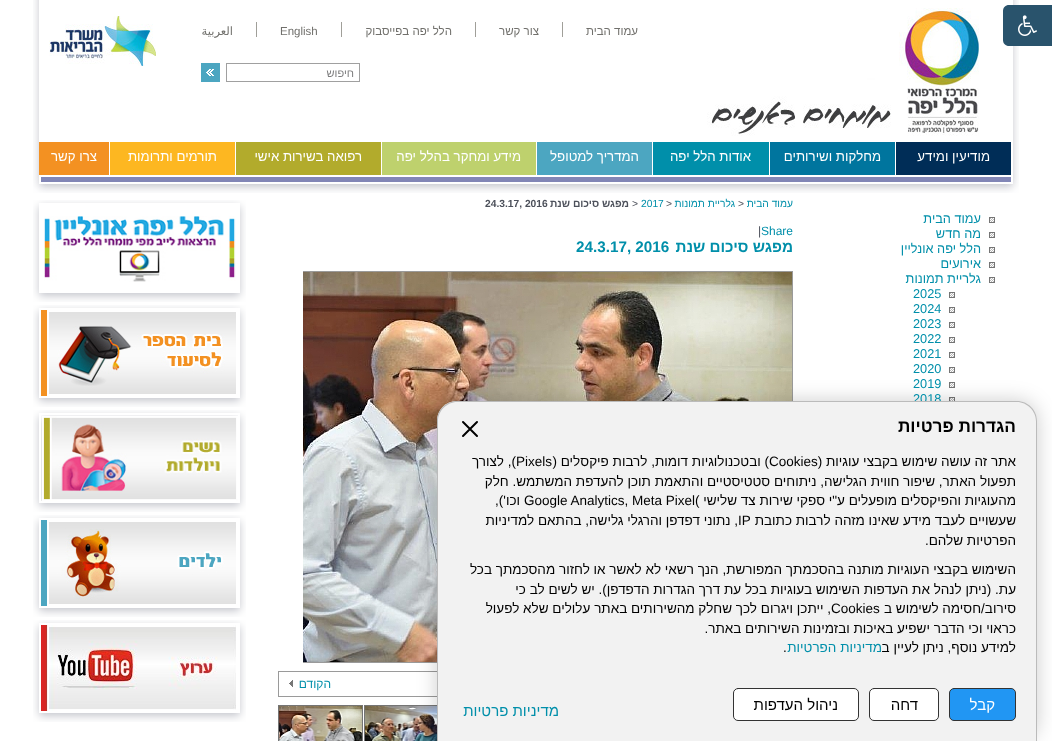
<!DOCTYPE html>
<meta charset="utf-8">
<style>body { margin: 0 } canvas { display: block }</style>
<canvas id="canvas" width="1052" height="741"></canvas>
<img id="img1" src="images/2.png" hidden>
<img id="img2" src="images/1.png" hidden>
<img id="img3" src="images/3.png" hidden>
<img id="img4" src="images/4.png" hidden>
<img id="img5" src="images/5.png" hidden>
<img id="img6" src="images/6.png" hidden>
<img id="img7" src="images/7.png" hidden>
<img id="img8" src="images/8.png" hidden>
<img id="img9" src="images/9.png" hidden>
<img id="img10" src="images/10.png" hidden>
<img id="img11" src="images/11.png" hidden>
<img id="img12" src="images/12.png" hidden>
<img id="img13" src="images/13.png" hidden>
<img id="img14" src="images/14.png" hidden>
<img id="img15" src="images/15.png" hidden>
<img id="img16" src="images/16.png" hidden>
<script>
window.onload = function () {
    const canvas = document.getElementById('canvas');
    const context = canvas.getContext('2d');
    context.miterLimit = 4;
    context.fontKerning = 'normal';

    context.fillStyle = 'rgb(255, 255, 255)';
    context.fillRect(0, 0, 1052, 741);
    context.drawImage(document.getElementById('img1'), 33, 0, 986, 193);
    context.fillStyle = 'rgb(41, 83, 108)';
    context.beginPath();
    context.moveTo(1009, 5);
    context.lineTo(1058, 5);
    context.lineTo(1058, 46);
    context.lineTo(1009, 46);
    context.bezierCurveTo(1005.5, 46, 1003, 43.5, 1003, 40);
    context.lineTo(1003, 11);
    context.bezierCurveTo(1003, 7.5, 1005.5, 5, 1009, 5);
    context.closePath();
    context.fill();
    context.drawImage(document.getElementById('img2'), 1018, 15, 19, 21);
    context.drawImage(document.getElementById('img3'), 707, 8, 272, 128);
    context.fillStyle = 'rgb(160, 159, 153)';
    context.fillRect(562, 22, 1, 15);
    context.fillRect(475, 22, 1, 15);
    context.fillRect(341, 22, 1, 15);
    context.fillRect(256, 22, 1, 15);
    context.strokeStyle = 'rgb(160, 160, 160)';
    context.strokeRect(226.5, 63.5, 133, 18);
    context.drawImage(document.getElementById('img4'), 201, 63, 19, 19);
    context.fillStyle = 'rgb(130, 134, 182)';
    context.fillRect(41, 177, 970, 5);
    context.fillStyle = 'rgb(0, 45, 87)';
    context.fillRect(896, 142, 115, 33);
    context.fillStyle = 'rgb(0, 117, 158)';
    context.fillRect(770, 142, 125, 33);
    context.fillStyle = 'rgb(0, 143, 170)';
    context.fillRect(653, 142, 116, 33);
    context.fillStyle = 'rgb(76, 166, 193)';
    context.fillRect(537, 142, 115, 33);
    context.fillStyle = 'rgb(190, 209, 109)';
    context.fillRect(382, 142, 154, 33);
    context.fillStyle = 'rgb(178, 171, 44)';
    context.fillRect(236, 142, 145, 33);
    context.fillStyle = 'rgb(253, 183, 33)';
    context.fillRect(110, 142, 125, 33);
    context.fillStyle = 'rgb(243, 145, 34)';
    context.fillRect(39, 142, 70, 33);
    context.drawImage(document.getElementById('img5'), 989, 217, 6, 6);
    context.drawImage(document.getElementById('img5'), 989, 232, 6, 6);
    context.drawImage(document.getElementById('img5'), 989, 247, 6, 6);
    context.drawImage(document.getElementById('img5'), 989, 262, 6, 6);
    context.drawImage(document.getElementById('img5'), 989, 277, 6, 6);
    context.drawImage(document.getElementById('img5'), 949, 292, 6, 6);
    context.drawImage(document.getElementById('img5'), 949, 307, 6, 6);
    context.drawImage(document.getElementById('img5'), 949, 322, 6, 6);
    context.drawImage(document.getElementById('img5'), 949, 337, 6, 6);
    context.drawImage(document.getElementById('img5'), 949, 352, 6, 6);
    context.drawImage(document.getElementById('img5'), 949, 367, 6, 6);
    context.drawImage(document.getElementById('img5'), 949, 382, 6, 6);
    context.drawImage(document.getElementById('img6'), 949, 397, 6, 4);
    context.save();
    context.beginPath();
    context.rect(303, 271, 490, 392);
    context.clip();
    context.strokeStyle = 'rgb(154, 154, 154)';
    context.strokeRect(301.5, 271.5, 491, 391);
    context.restore();
    context.drawImage(document.getElementById('img7'), 303, 272, 489, 390);
    context.strokeStyle = 'rgb(154, 154, 154)';
    context.strokeRect(278.5, 671.5, 514, 25);
    context.drawImage(document.getElementById('img8'), 289, 680, 4, 7);
    context.strokeStyle = 'rgb(117, 117, 117)';
    context.strokeRect(364.5, 705.5, 84, 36);
    context.drawImage(document.getElementById('img9'), 365, 706, 72, 35);
    context.strokeRect(278.5, 705.5, 84, 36);
    context.drawImage(document.getElementById('img10'), 279, 706, 83, 35);
    context.drawImage(document.getElementById('img11'), 33, 200, 213, 102);
    context.drawImage(document.getElementById('img12'), 44, 216, 192, 66);
    context.drawImage(document.getElementById('img11'), 33, 305, 213, 102);
    context.drawImage(document.getElementById('img13'), 41, 310, 195, 86);
    context.drawImage(document.getElementById('img11'), 33, 410, 213, 102);
    context.drawImage(document.getElementById('img14'), 41, 415, 197, 86);
    context.drawImage(document.getElementById('img11'), 33, 515, 213, 102);
    context.drawImage(document.getElementById('img15'), 41, 520, 195, 86);
    context.drawImage(document.getElementById('img11'), 33, 620, 213, 102);
    context.drawImage(document.getElementById('img16'), 41, 625, 195, 86);
    context.fillStyle = 'rgba(0, 0, 0, 0.2)';
    context.filter = 'blur(10px)';
    context.beginPath();
    context.roundRect(437, 401, 600, 340, 20);
    context.fill();
    context.filter = 'none';
    context.direction = 'rtl';
    context.font = '11.5px Liberation Sans';
    context.fillStyle = 'rgb(113, 112, 108)';
    context.fillText('עמוד הבית', 638, 35);
    context.fillText('צור קשר', 539, 35);
    context.fillText('הלל יפה בפייסבוק', 452, 35);
    context.direction = 'ltr';
    context.fillText('English', 280, 35);
    context.direction = 'rtl';
    context.font = '11.5px DejaVu Sans';
    context.fillText('العربية', 233, 35);
    context.font = '11px Liberation Sans';
    context.fillStyle = 'rgb(125, 125, 126)';
    context.fillText('חיפוש', 354, 77);
    context.font = '13.25px Liberation Sans';
    context.fillStyle = 'rgb(255, 255, 255)';
    context.fillText('מודיעין ומידע', 990, 161);
    context.fillText('מחלקות ושירותים', 881, 161);
    context.fillText('אודות הלל יפה', 751, 161);
    context.fillText('המדריך למטופל', 639, 161);
    context.fillText('מידע ומחקר בהלל יפה', 521, 161);
    context.fillText('רפואה בשירות אישי', 362, 161);
    context.fillText('תורמים ותרומות', 217, 161);
    context.fillText('צרו קשר', 97, 161);
    context.font = '12.75px Liberation Sans';
    context.fillStyle = 'rgb(0, 143, 170)';
    context.fillText('עמוד הבית', 981, 223);
    context.fillText('מה חדש', 981, 238);
    context.fillText('הלל יפה אונליין', 981, 253);
    context.fillText('אירועים', 981, 268);
    context.fillText('גלריית תמונות', 981, 283);
    context.direction = 'ltr';
    context.fillText('2025', 913, 298);
    context.fillText('2024', 913, 313);
    context.fillText('2023', 913, 328);
    context.fillText('2022', 913, 343);
    context.fillText('2021', 913, 358);
    context.fillText('2020', 913, 373);
    context.fillText('2019', 913, 388);
    context.fillText('2018', 913, 403);
    context.direction = 'rtl';
    context.font = '10.25px Liberation Sans';
    context.fillText('עמוד הבית', 793, 207);
    context.direction = 'ltr';
    context.fillStyle = 'rgb(77, 81, 91)';
    context.fillText('>', 738, 207);
    context.direction = 'rtl';
    context.fillStyle = 'rgb(0, 143, 170)';
    context.fillText('גלריית תמונות', 735, 207);
    context.direction = 'ltr';
    context.fillStyle = 'rgb(77, 81, 91)';
    context.fillText('>', 666, 207);
    context.fillStyle = 'rgb(0, 143, 170)';
    context.fillText('2017', 641, 207);
    context.fillStyle = 'rgb(77, 81, 91)';
    context.fillText('>', 632, 207);
    context.direction = 'rtl';
    context.font = 'bold 10.25px Liberation Sans';
    context.fillText('מפגש סיכום שנת', 629, 207);
    context.direction = 'ltr';
    context.fillText('24.3.17, 2016', 485, 207);
    context.font = '12px Liberation Sans';
    context.fillStyle = 'rgb(0, 143, 170)';
    context.fillText('Share', 761, 235);
    context.fillStyle = 'rgb(77, 81, 91)';
    context.fillText('|', 758, 235);
    context.direction = 'rtl';
    context.font = 'bold 15.25px Liberation Sans';
    context.fillStyle = 'rgb(0, 143, 170)';
    context.fillText('מפגש סיכום שנת', 793, 252);
    context.direction = 'ltr';
    context.fillText('24.3.17, 2016', 576, 252);
    context.direction = 'rtl';
    context.font = '12px Liberation Sans';
    context.fillText('הקודם', 331, 688);
    context.fillStyle = 'rgb(242, 242, 242)';
    context.beginPath();
    context.roundRect(437, 401, 600, 340, [20, 20, 0, 0]);
    context.fill();
    context.fillStyle = 'rgb(187, 187, 187)';
    context.beginPath();
    context.moveTo(457, 401);
    context.lineTo(1017, 401);
    context.bezierCurveTo(1028, 401, 1037, 410, 1037, 421);
    context.lineTo(1037, 741);
    context.lineTo(437, 741);
    context.lineTo(437, 421);
    context.bezierCurveTo(437, 410, 446, 401, 457, 401);
    context.closePath();
    context.moveTo(457, 402);
    context.lineTo(1017, 402);
    context.bezierCurveTo(1027, 402, 1036, 411, 1036, 421);
    context.lineTo(1036, 741);
    context.lineTo(438, 741);
    context.lineTo(438, 421);
    context.bezierCurveTo(438, 411, 447, 402, 457, 402);
    context.closePath();
    context.fill('evenodd');
    context.font = 'bold 17.25px Liberation Sans';
    context.fillStyle = 'rgb(0, 0, 0)';
    context.fillText('הגדרות פרטיות', 1016, 432);
    context.beginPath();
    context.moveTo(463, 422);
    context.lineTo(477, 436);
    context.moveTo(463, 436);
    context.lineTo(477, 422);
    context.strokeStyle = 'rgb(0, 0, 0)';
    context.lineWidth = 2;
    context.lineCap = 'round';
    context.lineJoin = 'round';
    context.stroke();
    context.direction = 'ltr';
    context.font = '13.5px Liberation Sans';
    context.fillText('Cookies', 769, 466);
    context.direction = 'rtl';
    context.fillText('אתר זה עושה שימוש בקבצי עוגיות (', 1016, 466);
    context.fillText(') ובטכנולוגיות דומות, לרבות פיקסלים (', 769, 466);
    context.direction = 'ltr';
    context.fillText('Pixels', 516, 466);
    context.direction = 'rtl';
    context.fillText('), לצורך', 516, 466);
    context.fillText('תפעול האתר, שיפור חווית הגלישה, ניתוחים סטטיסטיים והתאמת תוכן להעדפת המשתמש. חלק', 1016, 486);
    context.fillText('מהעוגיות והפיקסלים מופעלים ע"י ספקי שירות צד שלישי', 1016, 505);
    context.direction = 'ltr';
    context.fillText('Google Analytics, Meta Pixel(', 524, 505);
    context.direction = 'rtl';
    context.fillText('וכו\'),', 520, 505);
    context.fillText('שעשויים לעבד מידע שאינו מזהה לרבות כתובת', 1016, 525);
    context.direction = 'ltr';
    context.fillText('IP', 738, 525);
    context.direction = 'rtl';
    context.fillText(', נתוני דפדפן והרגלי גלישה, בהתאם למדיניות', 738, 525);
    context.fillText('הפרטיות שלהם.', 1016, 545);
    context.fillText('השימוש בקבצי העוגיות מותנה בהסכמתך המפורשת, הנך רשאי לא לאשר או לחזור מהסכמתך בכל', 1016, 574);
    context.fillText('עת. (ניתן לנהל את העדפות השימוש בעוגיות בכל עת דרך הגדרות הדפדפן). יש לשים לב כי', 1016, 594);
    context.fillText('סירוב/חסימה לשימוש ב', 1016, 613);
    context.direction = 'ltr';
    context.fillText('Cookies', 831, 613);
    context.direction = 'rtl';
    context.fillText(', ייתכן ויגרום לכך שחלק מהשירותים באתר עלולים שלא לפעול', 831, 613);
    context.fillText('כראוי וכי הדבר ישפיע באיכות ובזמינות השירותים באתר.', 1016, 633);
    context.fillText('למידע נוסף, ניתן לעיין ב', 1016, 652);
    context.fillStyle = 'rgb(0, 143, 170)';
    context.fillText('מדיניות הפרטיות', 882, 652);
    context.direction = 'ltr';
    context.fillStyle = 'rgb(0, 0, 0)';
    context.fillText('.', 783, 652);
    context.fillStyle = 'rgb(33, 150, 243)';
    context.beginPath();
    context.roundRect(949.5, 688.5, 66, 32, 4.5);
    context.fill();
    context.strokeStyle = 'rgb(51, 51, 51)';
    context.lineWidth = 1;
    context.lineJoin = 'miter';
    context.stroke();
    context.direction = 'rtl';
    context.font = '15px Liberation Sans';
    context.fillStyle = 'rgb(255, 255, 255)';
    context.fillText('קבל', 995, 710);
    context.beginPath();
    context.roundRect(869.5, 688.5, 69, 32, 4.5);
    context.fill();
    context.stroke();
    context.fillStyle = 'rgb(0, 0, 0)';
    context.fillText('דחה', 918, 710);
    context.fillStyle = 'rgb(255, 255, 255)';
    context.beginPath();
    context.roundRect(733.5, 688.5, 125, 32, 4.5);
    context.fill();
    context.stroke();
    context.fillStyle = 'rgb(0, 0, 0)';
    context.fillText('ניהול העדפות', 838, 710);
    context.fillStyle = 'rgb(0, 143, 170)';
    context.fillText('מדיניות פרטיות', 559, 716);
};
</script>
